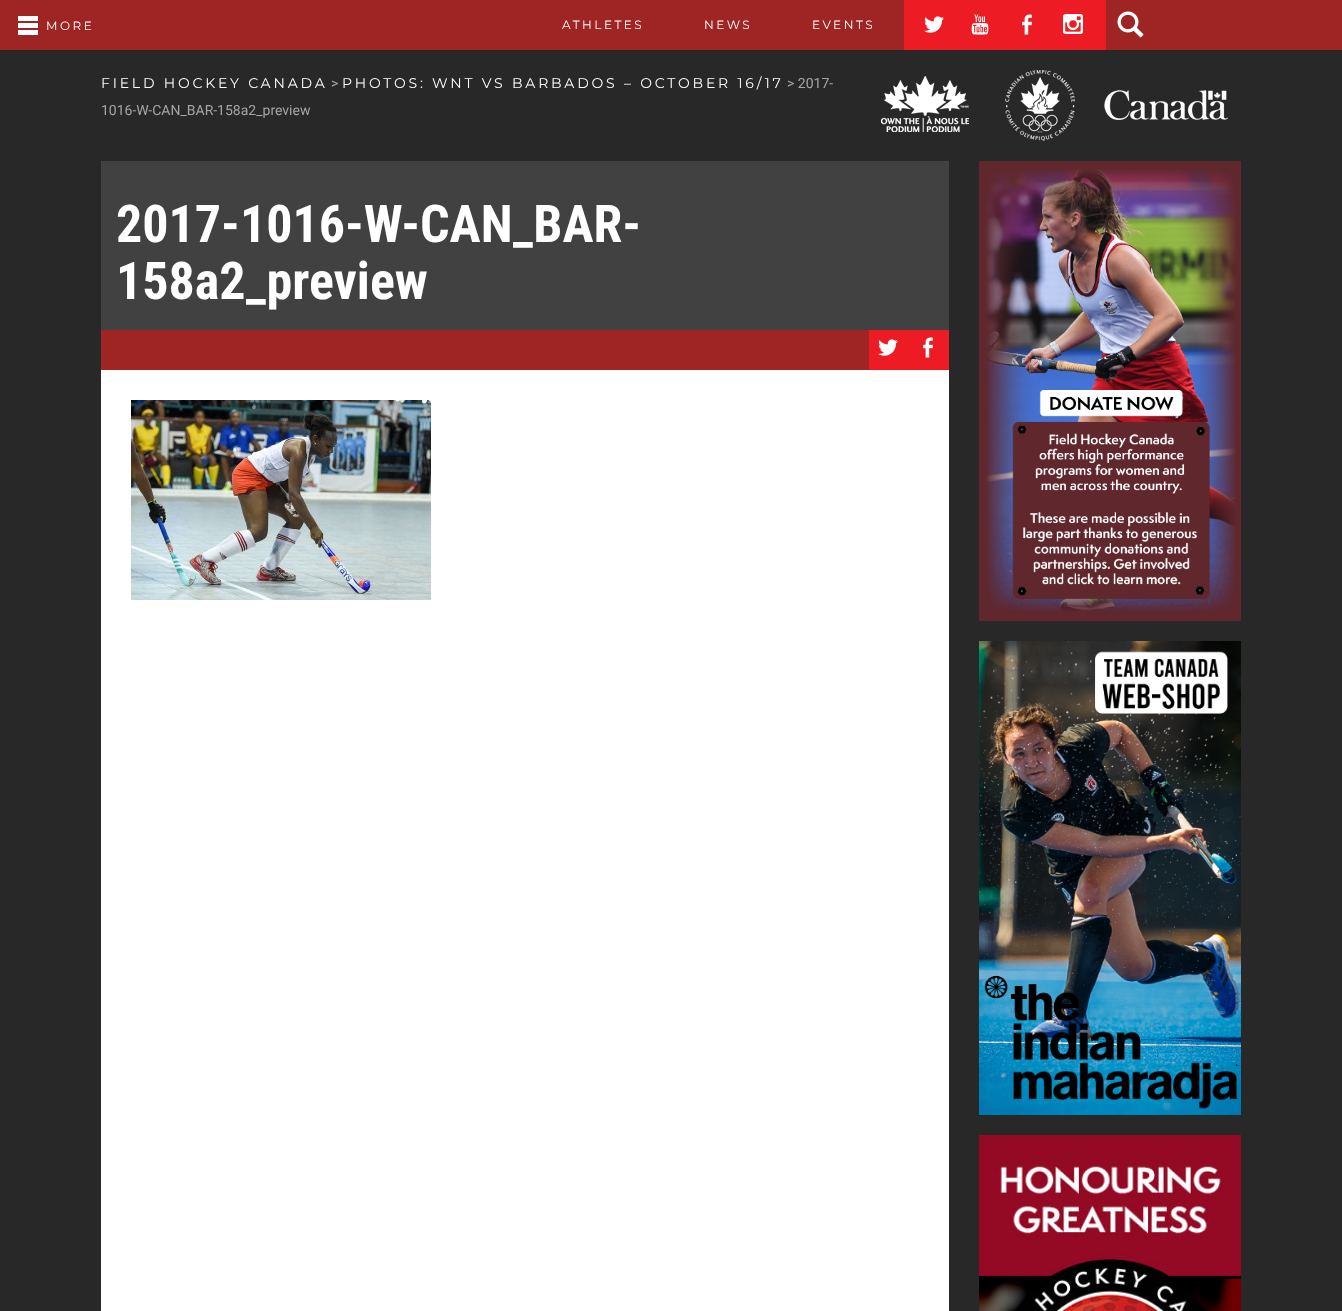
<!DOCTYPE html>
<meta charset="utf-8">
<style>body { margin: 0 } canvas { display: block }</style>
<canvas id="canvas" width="1342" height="1311"></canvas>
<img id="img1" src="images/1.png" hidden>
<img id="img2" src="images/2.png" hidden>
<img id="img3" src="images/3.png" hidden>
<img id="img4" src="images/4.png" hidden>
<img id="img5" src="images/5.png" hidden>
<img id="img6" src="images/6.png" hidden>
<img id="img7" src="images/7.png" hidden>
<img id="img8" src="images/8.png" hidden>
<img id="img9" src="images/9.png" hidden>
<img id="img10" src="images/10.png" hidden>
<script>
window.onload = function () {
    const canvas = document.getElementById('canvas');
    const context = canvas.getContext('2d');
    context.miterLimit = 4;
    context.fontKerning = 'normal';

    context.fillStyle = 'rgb(40, 40, 40)';
    context.fillRect(0, 0, 1342, 1311);
    context.fillStyle = 'rgb(159, 37, 36)';
    context.fillRect(0, 0, 1342, 50);
    context.fillStyle = 'rgb(255, 255, 255)';
    context.fillRect(18, 16, 20, 5);
    context.fillRect(18, 23, 20, 5);
    context.fillRect(18, 30, 20, 5);
    context.fillStyle = 'rgb(237, 28, 36)';
    context.fillRect(904, 0, 202, 50);
    context.drawImage(document.getElementById('img1'), 924, 16, 20, 17);
    context.drawImage(document.getElementById('img2'), 971, 14, 18, 21);
    context.drawImage(document.getElementById('img3'), 1022, 14, 10, 21);
    context.drawImage(document.getElementById('img4'), 1063, 14, 20, 20);
    context.drawImage(document.getElementById('img5'), 1117, 11, 27, 27);
    context.drawImage(document.getElementById('img6'), 881, 70, 347, 71);
    context.fillStyle = 'rgb(65, 65, 65)';
    context.fillRect(101, 161, 848, 169);
    context.fillStyle = 'rgb(159, 37, 36)';
    context.fillRect(101, 330, 768, 40);
    context.fillStyle = 'rgb(237, 28, 36)';
    context.fillRect(869, 330, 80, 40);
    context.drawImage(document.getElementById('img1'), 878, 339, 20, 17);
    context.drawImage(document.getElementById('img3'), 923, 337, 10, 21);
    context.fillStyle = 'rgb(255, 255, 255)';
    context.fillRect(101, 370, 848, 941);
    context.drawImage(document.getElementById('img7'), 131, 400, 300, 200);
    context.drawImage(document.getElementById('img8'), 979, 161, 262, 460);
    context.drawImage(document.getElementById('img9'), 979, 641, 262, 474);
    context.drawImage(document.getElementById('img10'), 979, 1135, 262, 176);
    context.letterSpacing = '2.5px';
    context.font = '100 12px Montserrat';
    context.fillText('MORE', 46, 30);
    context.fillText('ATHLETES', 562, 29);
    context.fillText('NEWS', 704, 29);
    context.fillText('EVENTS', 812, 29);
    context.letterSpacing = '2.8px';
    context.font = '100 14px Montserrat';
    context.fillText('FIELD HOCKEY CANADA', 101, 88);
    context.letterSpacing = '0px';
    context.font = '14px Roboto';
    context.fillStyle = 'rgb(165, 165, 165)';
    context.fillText('>', 331, 88);
    context.letterSpacing = '2.8px';
    context.font = '100 14px Montserrat';
    context.fillStyle = 'rgb(255, 255, 255)';
    context.fillText('PHOTOS: WNT VS BARBADOS – OCTOBER 16/17', 342, 88);
    context.letterSpacing = '0px';
    context.font = '14px Roboto';
    context.fillStyle = 'rgb(165, 165, 165)';
    context.fillText('> 2017-', 787, 88);
    context.fillText('1016-W-CAN_BAR-158a2_preview', 101, 115);
    context.font = 'bold 52px Roboto Condensed';
    context.fillStyle = 'rgb(255, 255, 255)';
    context.fillText('2017-1016-W-CAN_BAR-', 116, 242);
    context.fillText('158a2_preview', 116, 299);
};
</script>
